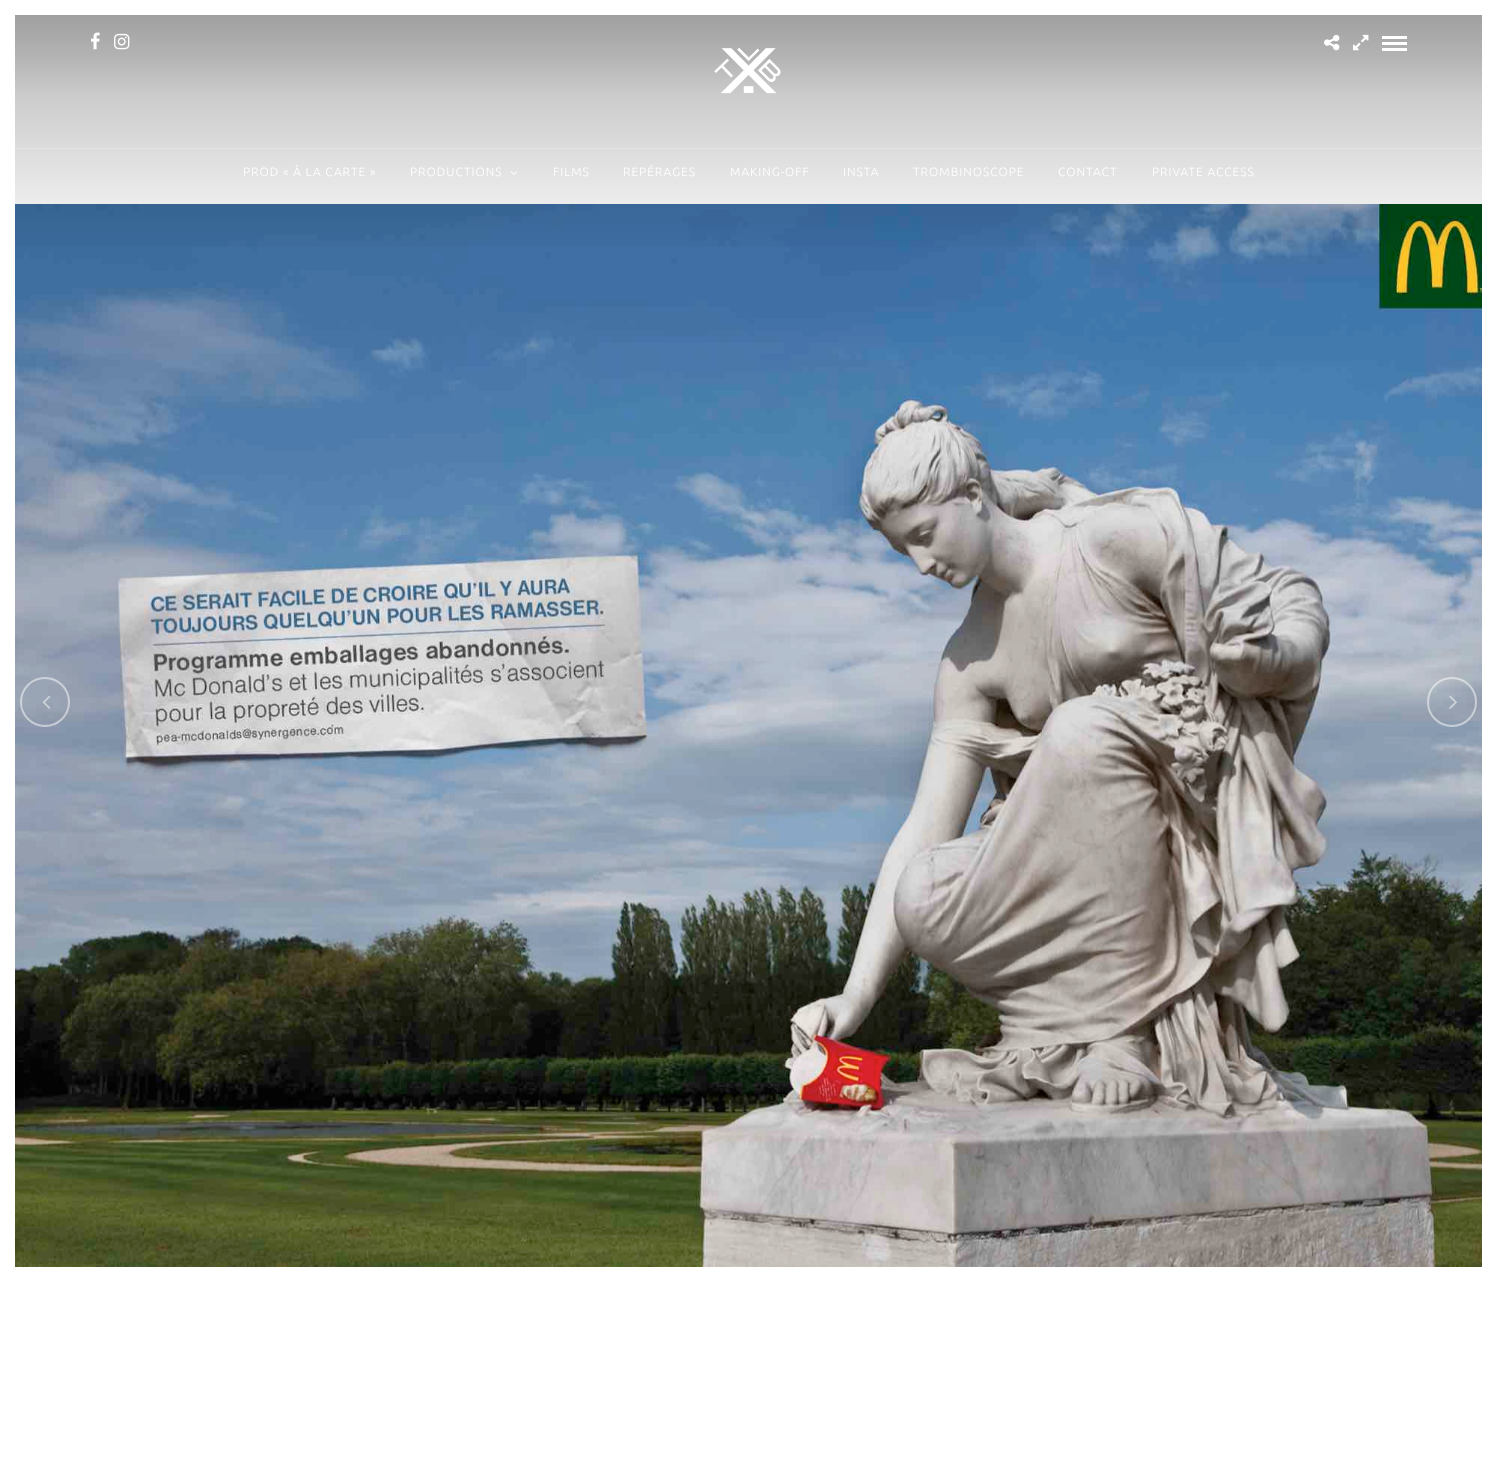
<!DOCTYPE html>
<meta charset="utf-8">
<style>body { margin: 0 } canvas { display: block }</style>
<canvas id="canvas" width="1497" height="1471"></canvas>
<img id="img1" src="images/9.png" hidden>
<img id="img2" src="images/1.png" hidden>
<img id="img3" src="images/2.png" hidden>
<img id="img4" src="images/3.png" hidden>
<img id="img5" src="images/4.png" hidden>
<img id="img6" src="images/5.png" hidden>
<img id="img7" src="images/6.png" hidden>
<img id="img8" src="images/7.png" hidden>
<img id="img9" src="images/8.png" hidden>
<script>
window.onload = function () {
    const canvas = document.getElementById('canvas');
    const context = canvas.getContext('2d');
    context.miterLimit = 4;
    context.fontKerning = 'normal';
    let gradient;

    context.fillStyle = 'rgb(255, 255, 255)';
    context.fillRect(0, 0, 1497, 1471);
    context.drawImage(document.getElementById('img1'), 15, 204, 1467, 1063);
    gradient = context.createLinearGradient(749, 0, 749, 274);
    gradient.addColorStop(0, 'rgba(0, 0, 0, 0.4)');
    gradient.addColorStop(0.2, 'rgba(0, 0, 0, 0.3)');
    gradient.addColorStop(0.35, 'rgba(0, 0, 0, 0.2)');
    gradient.addColorStop(0.97, 'rgba(0, 0, 0, 0)');
    context.fillStyle = gradient;
    context.fillRect(15, 15, 1467, 232);
    context.fillStyle = 'rgb(231, 231, 231)';
    context.fillRect(15, 148, 1467, 1);
    context.drawImage(document.getElementById('img2'), 91, 32, 9, 18);
    context.drawImage(document.getElementById('img3'), 114, 33, 16, 17);
    context.drawImage(document.getElementById('img4'), 1324, 34, 16, 17);
    context.drawImage(document.getElementById('img5'), 1353, 34, 16, 17);
    context.fillStyle = 'rgb(255, 255, 255)';
    context.fillRect(1382, 36, 25, 3);
    context.fillRect(1382, 42, 25, 3);
    context.fillRect(1382, 48, 25, 3);
    context.drawImage(document.getElementById('img6'), 714, 47, 67, 47);
    context.drawImage(document.getElementById('img7'), 510, 171, 7, 4);
    context.beginPath();
    context.arc(45, 702, 24, 0, 2 * Math.PI);
    context.strokeStyle = 'rgba(255, 255, 255, 0.5)';
    context.lineWidth = 2;
    context.stroke();
    context.drawImage(document.getElementById('img8'), 42, 695, 9, 14);
    context.beginPath();
    context.arc(1452, 702, 24, 0, 2 * Math.PI);
    context.stroke();
    context.drawImage(document.getElementById('img9'), 1449, 695, 8, 14);
    context.letterSpacing = '1px';
    context.font = '300 12px Ubuntu';
    context.fillText('PROD « À LA CARTE »', 243, 176);
    context.fillText('PRODUCTIONS', 410, 176);
    context.fillText('FILMS', 553, 176);
    context.fillText('REPÉRAGES', 623, 176);
    context.fillText('MAKING-OFF', 730, 176);
    context.fillText('INSTA', 843, 176);
    context.fillText('TROMBINOSCOPE', 913, 176);
    context.fillText('CONTACT', 1058, 176);
    context.fillText('PRIVATE ACCESS', 1152, 176);
};
</script>
